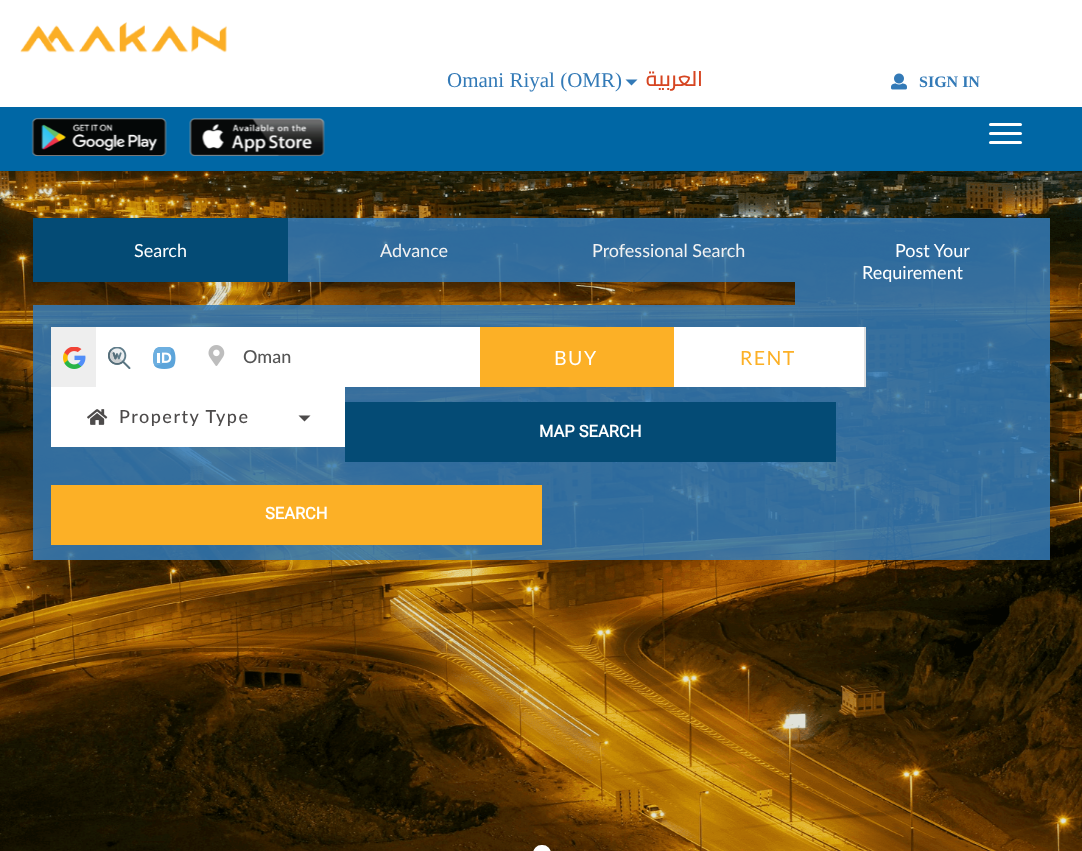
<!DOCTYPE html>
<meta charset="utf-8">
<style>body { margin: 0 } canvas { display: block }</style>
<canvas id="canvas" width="1082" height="851"></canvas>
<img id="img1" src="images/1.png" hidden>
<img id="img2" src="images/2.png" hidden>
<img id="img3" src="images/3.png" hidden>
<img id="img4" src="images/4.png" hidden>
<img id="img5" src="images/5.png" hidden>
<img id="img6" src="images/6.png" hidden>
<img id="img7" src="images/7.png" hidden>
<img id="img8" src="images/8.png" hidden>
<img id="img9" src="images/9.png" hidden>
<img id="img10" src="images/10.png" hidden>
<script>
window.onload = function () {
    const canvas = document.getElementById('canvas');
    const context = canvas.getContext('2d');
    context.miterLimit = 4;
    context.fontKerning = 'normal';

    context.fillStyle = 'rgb(255, 255, 255)';
    context.fillRect(0, 0, 1082, 851);
    context.drawImage(document.getElementById('img1'), 20, 22, 207, 31);
    context.fillStyle = 'rgb(51, 122, 183)';
    context.beginPath();
    context.moveTo(625.5, 79.5);
    context.lineTo(637.5, 79.5);
    context.lineTo(631.5, 85.5);
    context.closePath();
    context.fill();
    context.drawImage(document.getElementById('img2'), 891, 73, 16, 17);
    context.fillStyle = 'rgb(0, 103, 165)';
    context.fillRect(0, 107, 1082, 64);
    context.drawImage(document.getElementById('img3'), 31, 117, 136, 39);
    context.drawImage(document.getElementById('img4'), 189, 118, 136, 38);
    context.fillStyle = 'rgb(255, 255, 255)';
    context.beginPath();
    context.roundRect(989, 123, 33, 3, 1.5);
    context.fill();
    context.beginPath();
    context.roundRect(989, 132, 33, 3, 1.5);
    context.fill();
    context.beginPath();
    context.roundRect(989, 141, 33, 3, 1.5);
    context.fill();
    context.drawImage(document.getElementById('img5'), 0, 171, 1082, 680);
    context.fillStyle = 'rgb(4, 75, 117)';
    context.fillRect(33, 218, 255, 64);
    context.fillStyle = 'rgba(51, 122, 183, 0.86)';
    context.fillRect(288, 218, 254, 64);
    context.fillRect(542, 218, 253, 64);
    context.fillRect(795, 218, 255, 87);
    context.fillRect(33, 305, 1017, 255);
    context.fillStyle = 'rgb(238, 238, 238)';
    context.fillRect(51, 327, 45, 60);
    context.drawImage(document.getElementById('img6'), 63, 347, 23, 22);
    context.fillStyle = 'rgb(255, 255, 255)';
    context.fillRect(96, 327, 384, 60);
    context.drawImage(document.getElementById('img7'), 108, 347, 23, 22);
    context.drawImage(document.getElementById('img8'), 153, 347, 23, 22);
    context.drawImage(document.getElementById('img9'), 208, 345, 17, 21);
    context.fillStyle = 'rgb(252, 176, 38)';
    context.fillRect(480, 327, 194, 60);
    context.fillStyle = 'rgb(255, 255, 255)';
    context.fillRect(674, 327, 190, 60);
    context.fillStyle = 'rgb(223, 223, 223)';
    context.fillRect(864, 327, 2, 60);
    context.fillStyle = 'rgb(255, 255, 255)';
    context.fillRect(51, 387, 294, 60);
    context.drawImage(document.getElementById('img10'), 87, 409, 21, 16);
    context.fillStyle = 'rgb(77, 75, 75)';
    context.beginPath();
    context.moveTo(298.5, 415.5);
    context.lineTo(310.5, 415.5);
    context.lineTo(304.5, 421.5);
    context.closePath();
    context.fill();
    context.fillStyle = 'rgb(4, 75, 117)';
    context.fillRect(345, 402, 491, 60);
    context.fillStyle = 'rgb(252, 176, 38)';
    context.fillRect(51, 485, 491, 60);
    context.fillStyle = 'rgb(255, 255, 255)';
    context.beginPath();
    context.roundRect(534, 846, 16, 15, 8);
    context.fill();
    context.strokeStyle = 'rgb(255, 255, 255)';
    context.lineWidth = 2;
    context.stroke();
    context.font = '21px Liberation Serif';
    context.fillStyle = 'rgb(51, 122, 183)';
    context.fillText('Omani Riyal (OMR)', 447, 87);
    context.direction = 'rtl';
    context.font = '600 21px Cairo';
    context.fillStyle = 'rgb(214, 69, 33)';
    context.fillText('العربية', 703, 86);
    context.direction = 'ltr';
    context.font = 'bold 16px Liberation Serif';
    context.fillStyle = 'rgb(51, 122, 183)';
    context.fillText('SIGN IN', 919, 87);
    context.font = '18px Lato';
    context.fillStyle = 'rgb(255, 255, 255)';
    context.fillText('Search', 134, 257);
    context.fillStyle = 'rgb(242, 242, 242)';
    context.fillText('Advance', 380, 257);
    context.fillText('Professional Search', 592, 257);
    context.fillStyle = 'rgb(255, 255, 255)';
    context.fillText('Post Your', 895, 257);
    context.fillText('Requirement', 862, 279);
    context.font = '500 18px Lato';
    context.fillStyle = 'rgb(85, 85, 85)';
    context.fillText('Oman', 243, 363);
    context.letterSpacing = '1.5px';
    context.font = '19.5px Lato';
    context.fillStyle = 'rgb(255, 255, 255)';
    context.fillText('BUY', 554, 365);
    context.fillStyle = 'rgb(252, 176, 38)';
    context.fillText('RENT', 740, 365);
    context.font = '500 18px Lato';
    context.fillStyle = 'rgb(77, 75, 75)';
    context.fillText('Property Type', 119, 423);
    context.letterSpacing = '0px';
    context.font = 'bold 16.5px Roboto';
    context.fillStyle = 'rgb(255, 255, 255)';
    context.fillText('MAP SEARCH', 539, 437);
    context.fillText('SEARCH', 265, 519);
};
</script>
